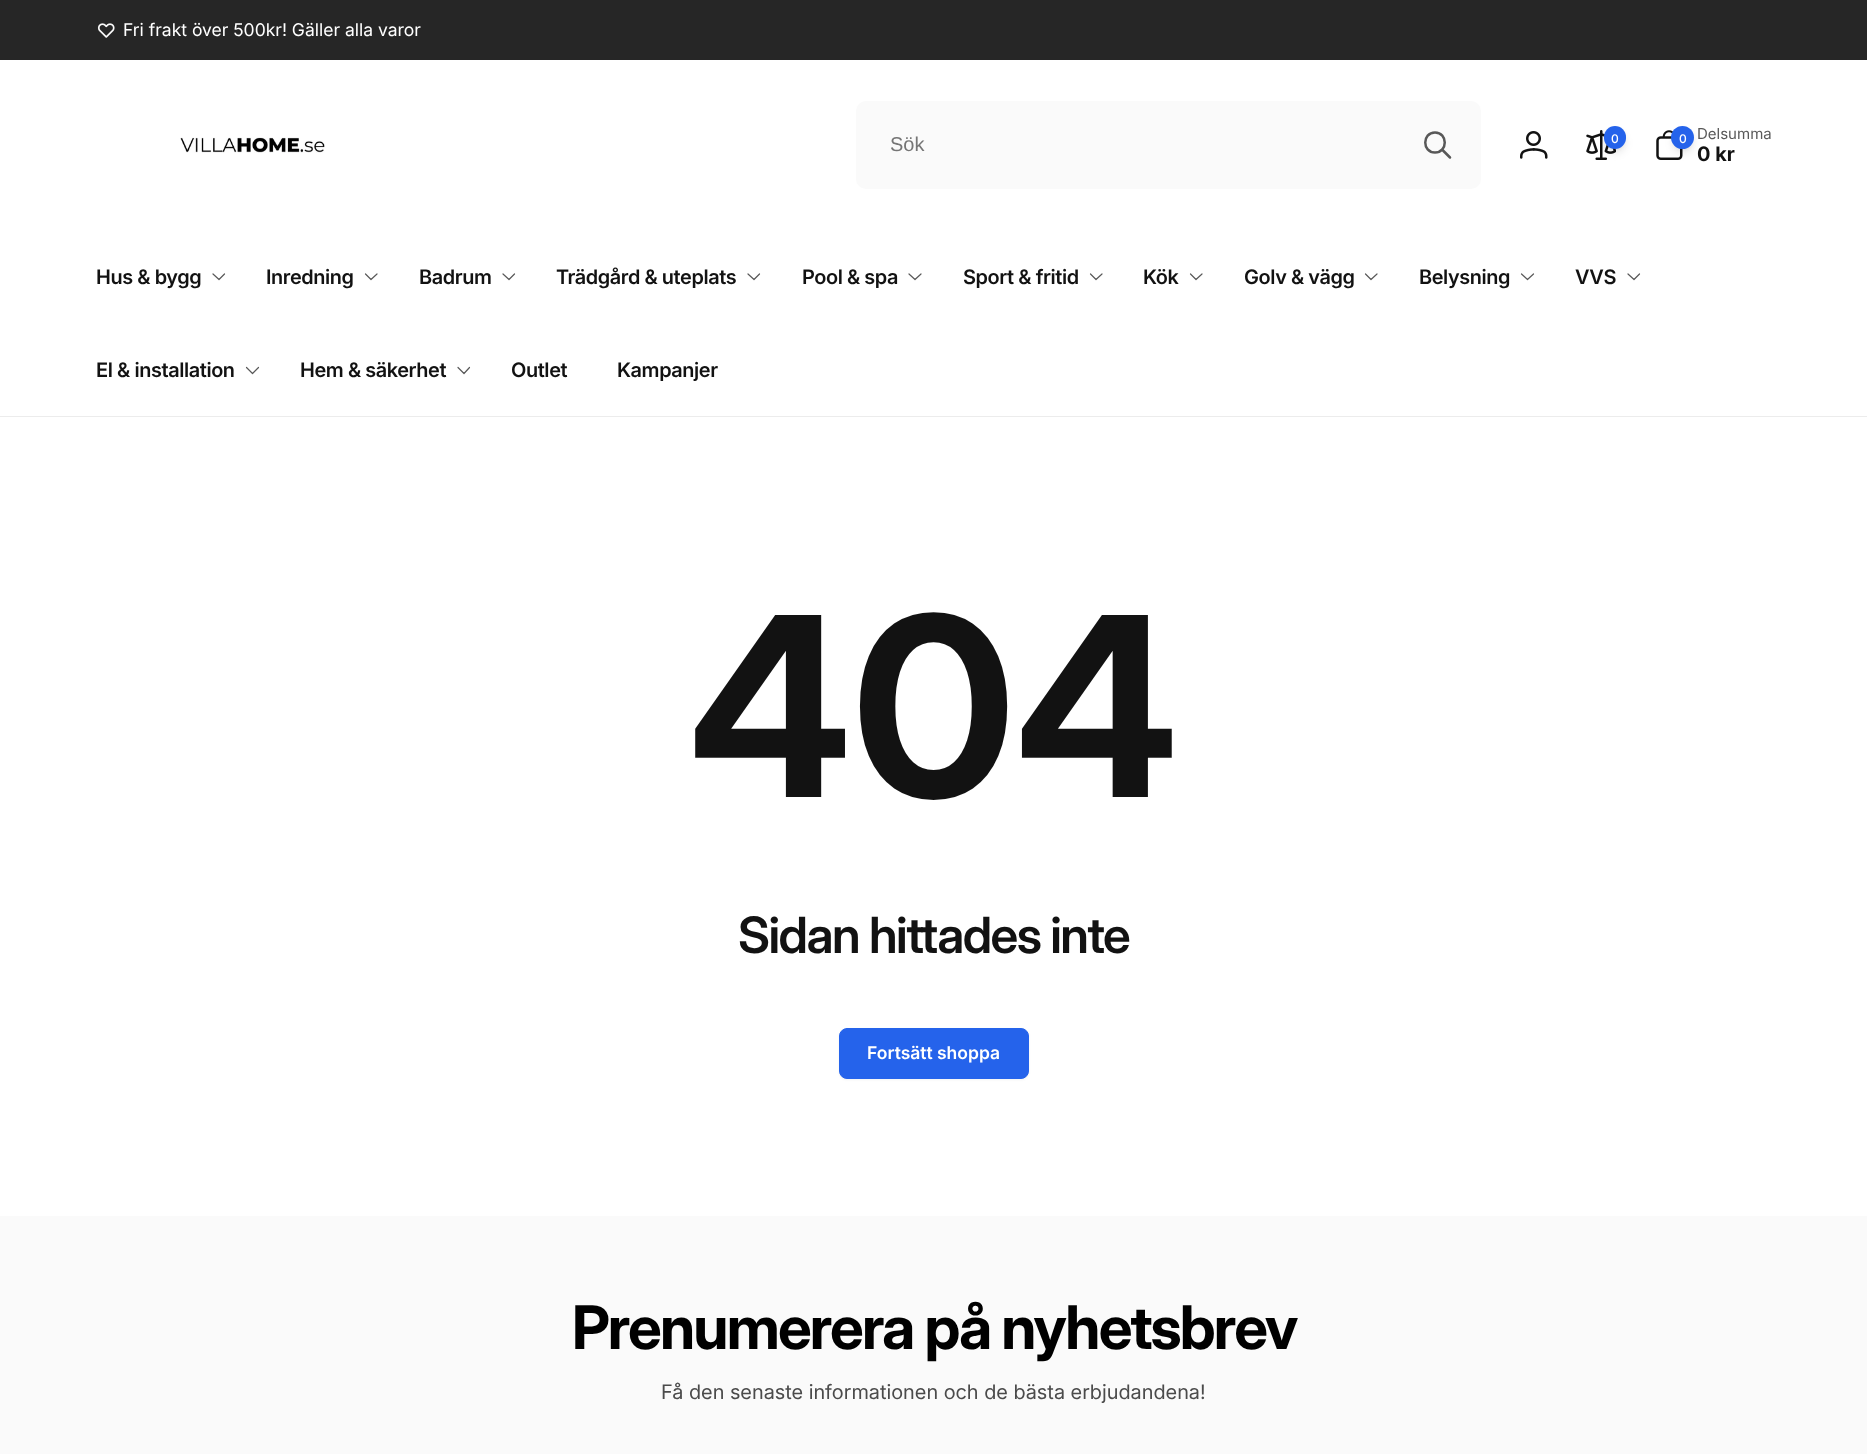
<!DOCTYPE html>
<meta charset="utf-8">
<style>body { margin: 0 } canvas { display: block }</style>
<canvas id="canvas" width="1867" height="1454"></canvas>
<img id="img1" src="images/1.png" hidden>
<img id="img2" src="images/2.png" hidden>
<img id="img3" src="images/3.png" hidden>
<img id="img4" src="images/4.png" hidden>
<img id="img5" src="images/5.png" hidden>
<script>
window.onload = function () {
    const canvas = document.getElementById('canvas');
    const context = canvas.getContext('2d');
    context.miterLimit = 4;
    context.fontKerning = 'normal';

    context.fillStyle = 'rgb(255, 255, 255)';
    context.fillRect(0, 0, 1867, 1454);
    context.fillStyle = 'rgb(38, 38, 38)';
    context.fillRect(0, 0, 1867, 60);
    context.drawImage(document.getElementById('img1'), 97, 23, 18, 15);
    context.fillStyle = 'rgb(236, 236, 236)';
    context.fillRect(0, 416, 1867, 1);
    context.drawImage(document.getElementById('img2'), 180, 137, 145, 16);
    context.fillStyle = 'rgb(250, 250, 250)';
    context.beginPath();
    context.roundRect(856, 101, 625, 88, 10);
    context.fill();
    context.beginPath();
    context.moveTo(1450, 157.5);
    context.lineTo(1442, 149.5);
    context.moveTo(1435, 152.5);
    context.bezierCurveTo(1448, 152.5, 1448, 132.5, 1435, 132.5);
    context.bezierCurveTo(1422, 132.5, 1422, 152.5, 1435, 152.5);
    context.closePath();
    context.strokeStyle = 'rgb(88, 88, 88)';
    context.lineWidth = 2.5;
    context.lineCap = 'round';
    context.lineJoin = 'round';
    context.stroke();
    context.drawImage(document.getElementById('img3'), 1520, 131, 28, 28);
    context.drawImage(document.getElementById('img4'), 1586, 130, 30, 30);
    context.fillStyle = 'rgba(18, 18, 18, 0.06)';
    context.filter = 'blur(2.5px)';
    context.beginPath();
    context.roundRect(1605, 130, 20, 20, 10);
    context.fill();
    context.filter = 'none';
    context.fillStyle = 'rgba(18, 18, 18, 0.1)';
    context.filter = 'blur(4px)';
    context.beginPath();
    context.roundRect(1605, 133, 20, 20, 10);
    context.fill();
    context.filter = 'none';
    context.fillStyle = 'rgb(37, 99, 235)';
    context.beginPath();
    context.roundRect(1604, 126, 22, 23, 11);
    context.fill();
    context.drawImage(document.getElementById('img5'), 1656, 130, 27, 30);
    context.fillStyle = 'rgba(18, 18, 18, 0.06)';
    context.filter = 'blur(2.5px)';
    context.beginPath();
    context.roundRect(1673, 130, 20, 20, 10);
    context.fill();
    context.filter = 'none';
    context.fillStyle = 'rgba(18, 18, 18, 0.1)';
    context.filter = 'blur(4px)';
    context.beginPath();
    context.roundRect(1673, 133, 20, 20, 10);
    context.fill();
    context.filter = 'none';
    context.fillStyle = 'rgb(37, 99, 235)';
    context.beginPath();
    context.arc(1682.5, 137.5, 11.5, 0, 2 * Math.PI);
    context.fill();
    context.beginPath();
    context.moveTo(224.5, 274);
    context.lineTo(219, 279.5);
    context.lineTo(213, 274);
    context.strokeStyle = 'rgb(89, 89, 89)';
    context.lineWidth = 1.2;
    context.stroke();
    context.beginPath();
    context.moveTo(377, 274);
    context.lineTo(371, 279.5);
    context.lineTo(365.5, 274);
    context.stroke();
    context.beginPath();
    context.moveTo(514.5, 274);
    context.lineTo(509, 279.5);
    context.lineTo(503, 274);
    context.stroke();
    context.beginPath();
    context.moveTo(759.5, 274);
    context.lineTo(754, 279.5);
    context.lineTo(748, 274);
    context.stroke();
    context.beginPath();
    context.moveTo(921, 274);
    context.lineTo(915, 279.5);
    context.lineTo(909, 274);
    context.stroke();
    context.beginPath();
    context.moveTo(1102, 274);
    context.lineTo(1096, 279.5);
    context.lineTo(1090.5, 274);
    context.stroke();
    context.beginPath();
    context.moveTo(1202, 274);
    context.lineTo(1196, 279.5);
    context.lineTo(1190.5, 274);
    context.stroke();
    context.beginPath();
    context.moveTo(1377, 274);
    context.lineTo(1371, 279.5);
    context.lineTo(1365.5, 274);
    context.stroke();
    context.beginPath();
    context.moveTo(1533.5, 274);
    context.lineTo(1527.5, 279.5);
    context.lineTo(1521.5, 274);
    context.stroke();
    context.beginPath();
    context.moveTo(1639.5, 274);
    context.lineTo(1634, 279.5);
    context.lineTo(1628, 274);
    context.stroke();
    context.beginPath();
    context.moveTo(258.5, 367.5);
    context.lineTo(252.5, 373.5);
    context.lineTo(246.5, 367.5);
    context.stroke();
    context.beginPath();
    context.moveTo(469.5, 367.5);
    context.lineTo(464, 373.5);
    context.lineTo(458, 367.5);
    context.stroke();
    context.fillStyle = 'rgba(18, 18, 18, 0.05)';
    context.filter = 'blur(1px)';
    context.beginPath();
    context.roundRect(839, 1029, 190, 51, 8);
    context.fill();
    context.filter = 'none';
    context.fillStyle = 'rgb(37, 99, 235)';
    context.beginPath();
    context.roundRect(839.5, 1028.5, 189, 50, 7.5);
    context.fill();
    context.strokeStyle = 'rgb(37, 99, 235)';
    context.lineWidth = 1;
    context.lineJoin = 'miter';
    context.stroke();
    context.fillStyle = 'rgb(250, 250, 250)';
    context.fillRect(0, 1216, 1867, 238);
    context.font = '17.5px "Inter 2"';
    context.fillStyle = 'rgb(255, 255, 255)';
    context.fillText('Fri frakt över 500kr! Gäller alla varor', 123, 36);
    context.font = '20px Liberation Sans';
    context.fillStyle = 'rgb(117, 117, 117)';
    context.fillText('Sök', 890, 151);
    context.font = '500 12px Inter';
    context.fillStyle = 'rgb(255, 255, 255)';
    context.fillText('0', 1611, 143);
    context.fillText('0', 1679, 143);
    context.font = '15px "Inter 2"';
    context.fillStyle = 'rgb(89, 89, 89)';
    context.fillText('Delsumma', 1697, 139);
    context.font = 'bold 20px "Inter 2"';
    context.fillStyle = 'rgb(18, 18, 18)';
    context.fillText('0 kr', 1697, 161);
    context.letterSpacing = '-0.4px';
    context.font = '600 20px "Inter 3"';
    context.fillText('Hus & bygg', 96, 284);
    context.fillText('Inredning', 266, 284);
    context.fillText('Badrum', 419, 284);
    context.fillText('Trädgård & uteplats', 556, 284);
    context.fillText('Pool & spa', 802, 284);
    context.fillText('Sport & fritid', 963, 284);
    context.fillText('Kök', 1143, 284);
    context.fillText('Golv & vägg', 1244, 284);
    context.fillText('Belysning', 1419, 284);
    context.fillText('VVS', 1575, 284);
    context.fillText('El & installation', 96, 377);
    context.fillText('Hem & säkerhet', 300, 377);
    context.fillText('Outlet', 511, 377);
    context.fillText('Kampanjer', 617, 377);
    context.letterSpacing = '0px';
    context.font = 'bold 250px Inter';
    context.fillText('404', 688, 797);
    context.letterSpacing = '-1.5px';
    context.font = '600 50px Inter';
    context.fillText('Sidan hittades inte', 738, 953);
    context.letterSpacing = '0px';
    context.font = '600 17.5px "Inter 2"';
    context.fillStyle = 'rgb(255, 255, 255)';
    context.fillText('Fortsätt shoppa', 867, 1059);
    context.letterSpacing = '-1.8px';
    context.font = 'bold 60px Inter';
    context.fillStyle = 'rgb(0, 0, 0)';
    context.fillText('Prenumerera på nyhetsbrev', 572, 1349);
    context.letterSpacing = '0px';
    context.font = '20px Inter';
    context.fillStyle = 'rgb(75, 75, 75)';
    context.fillText('Få den senaste informationen och de bästa erbjudandena!', 661, 1399);
};
</script>
